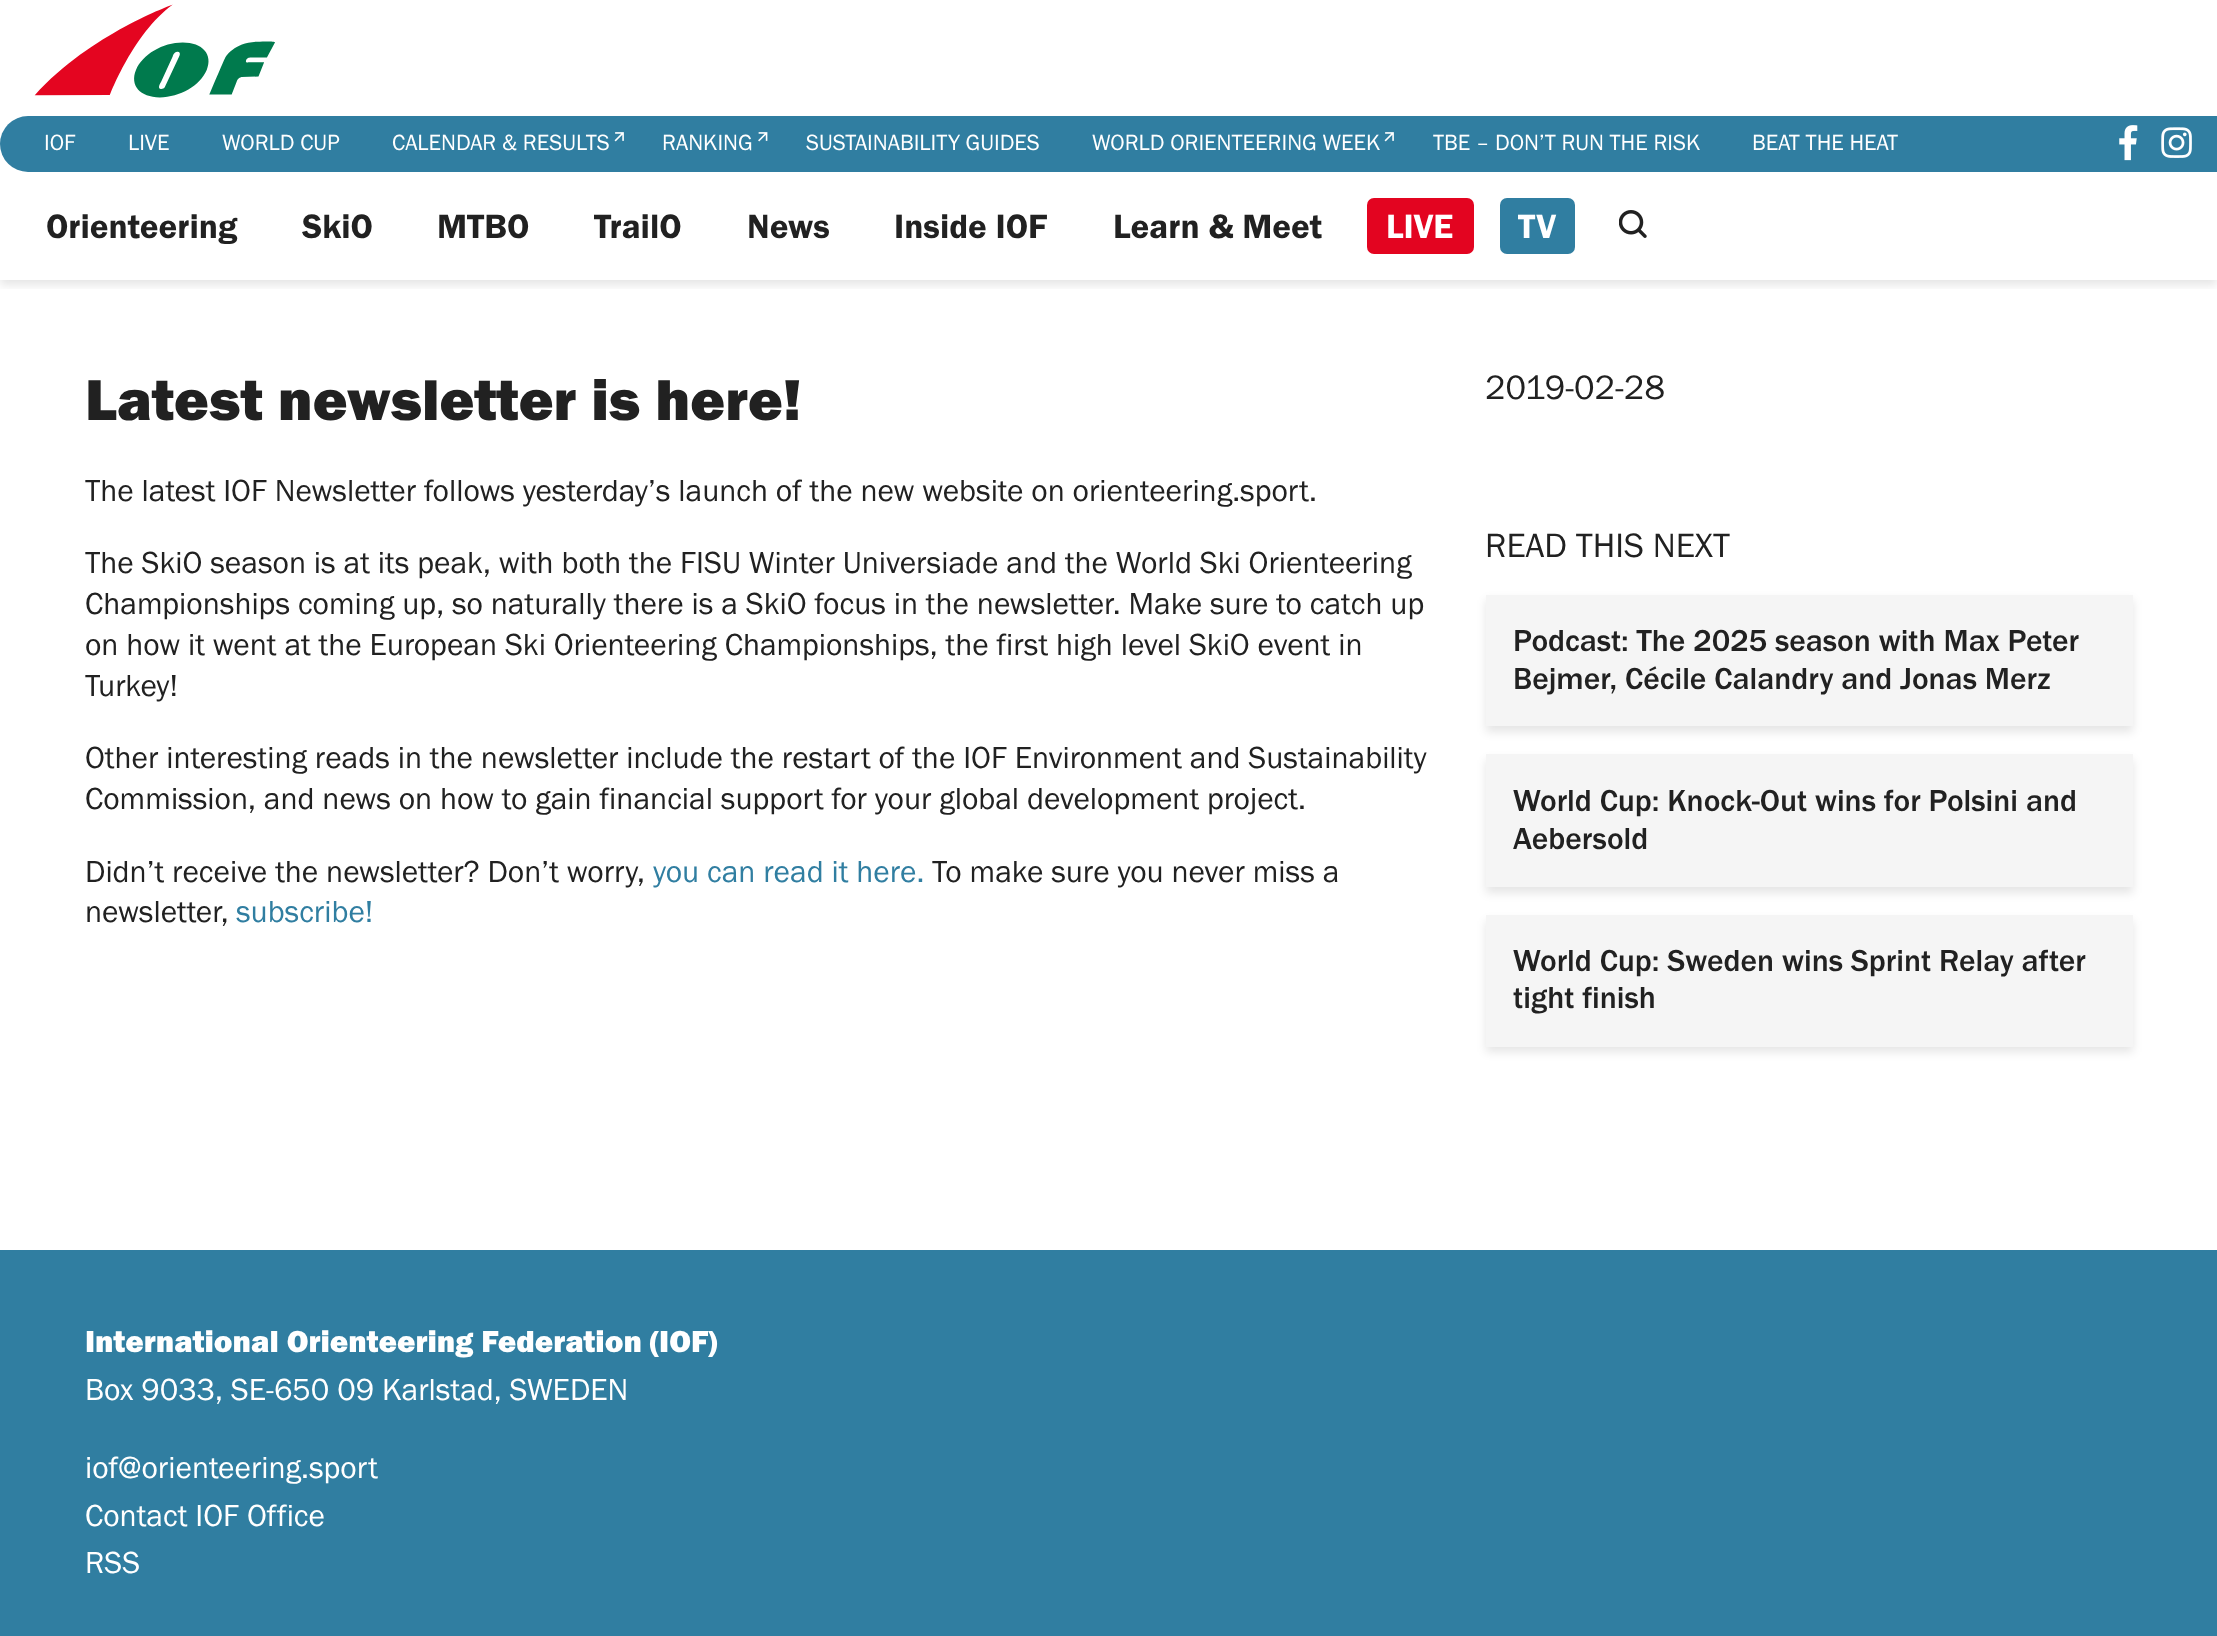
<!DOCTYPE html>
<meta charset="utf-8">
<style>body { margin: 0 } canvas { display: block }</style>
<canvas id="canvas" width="2217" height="1636"></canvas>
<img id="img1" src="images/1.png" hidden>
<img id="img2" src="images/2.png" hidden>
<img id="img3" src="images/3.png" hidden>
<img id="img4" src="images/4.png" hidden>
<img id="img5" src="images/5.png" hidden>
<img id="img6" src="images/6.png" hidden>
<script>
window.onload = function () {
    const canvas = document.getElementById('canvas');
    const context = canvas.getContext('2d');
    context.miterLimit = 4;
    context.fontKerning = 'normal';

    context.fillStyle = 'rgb(255, 255, 255)';
    context.fillRect(0, 0, 2217, 1636);
    context.save();
    context.beginPath();
    context.rect(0, 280, 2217, 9);
    context.clip();
    context.fillStyle = 'rgba(0, 0, 0, 0.1)';
    context.filter = 'blur(5px)';
    context.beginPath();
    context.rect(0, 5, 2217, 280);
    context.fill();
    context.filter = 'none';
    context.restore();
    context.drawImage(document.getElementById('img1'), 34, 4, 241, 94);
    context.fillStyle = 'rgb(48, 126, 161)';
    context.beginPath();
    context.roundRect(0, 116, 2217, 56, [28, 0, 0, 28]);
    context.fill();
    context.drawImage(document.getElementById('img2'), 614, 132, 10, 10);
    context.drawImage(document.getElementById('img3'), 758, 132, 10, 10);
    context.drawImage(document.getElementById('img2'), 1384, 132, 10, 10);
    context.drawImage(document.getElementById('img4'), 2119, 125, 19, 36);
    context.drawImage(document.getElementById('img5'), 2161, 127, 31, 31);
    context.fillStyle = 'rgb(227, 4, 32)';
    context.beginPath();
    context.roundRect(1367, 198, 107, 56, 7);
    context.fill();
    context.fillStyle = 'rgb(48, 126, 161)';
    context.beginPath();
    context.roundRect(1500, 198, 75, 56, 7);
    context.fill();
    context.drawImage(document.getElementById('img6'), 1619, 210, 28, 28);
    context.fillStyle = 'rgba(0, 0, 0, 0.1)';
    context.filter = 'blur(5px)';
    context.beginPath();
    context.rect(1486, 600, 647, 132);
    context.fill();
    context.filter = 'none';
    context.fillStyle = 'rgb(245, 245, 245)';
    context.fillRect(1486, 595, 647, 131);
    context.fillStyle = 'rgba(0, 0, 0, 0.1)';
    context.filter = 'blur(5px)';
    context.beginPath();
    context.rect(1486, 760, 647, 133);
    context.fill();
    context.filter = 'none';
    context.fillStyle = 'rgb(245, 245, 245)';
    context.fillRect(1486, 754, 647, 133);
    context.fillStyle = 'rgba(0, 0, 0, 0.1)';
    context.filter = 'blur(5px)';
    context.beginPath();
    context.rect(1486, 921, 647, 131);
    context.fill();
    context.filter = 'none';
    context.fillStyle = 'rgb(245, 245, 245)';
    context.fillRect(1486, 915, 647, 132);
    context.fillStyle = 'rgb(48, 126, 161)';
    context.fillRect(0, 1250, 2217, 386);
    context.font = '22.75px Franklin Gothic';
    context.fillStyle = 'rgb(255, 255, 255)';
    context.fillText('IOF', 44, 150);
    context.fillText('LIVE', 128, 150);
    context.fillText('WORLD CUP', 222, 150);
    context.fillText('CALENDAR & RESULTS', 392, 150);
    context.fillText('RANKING', 662, 150);
    context.fillText('SUSTAINABILITY GUIDES', 806, 150);
    context.fillText('WORLD ORIENTEERING WEEK', 1092, 150);
    context.fillText('TBE – DON’T RUN THE RISK', 1433, 150);
    context.fillText('BEAT THE HEAT', 1752, 150);
    context.font = '35px "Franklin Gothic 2"';
    context.fillStyle = 'rgb(33, 33, 33)';
    context.fillText('Orienteering', 46, 238);
    context.fillText('SkiO', 302, 238);
    context.fillText('MTBO', 437, 238);
    context.fillText('TrailO', 594, 238);
    context.fillText('News', 747, 238);
    context.fillText('Inside IOF', 894, 238);
    context.fillText('Learn & Meet', 1113, 238);
    context.fillStyle = 'rgb(255, 255, 255)';
    context.fillText('LIVE', 1386, 238);
    context.fillText('TV', 1518, 238);
    context.font = '900 59.5px Franklin Gothic';
    context.fillStyle = 'rgb(33, 33, 33)';
    context.fillText('Latest newsletter is here!', 85, 420);
    context.font = '31.5px Franklin Gothic';
    context.fillText('The latest IOF Newsletter follows yesterday’s launch of the new website on orienteering.sport.', 85, 501);
    context.fillText('The SkiO season is at its peak, with both the FISU Winter Universiade and the World Ski Orienteering', 85, 573);
    context.fillText('Championships coming up, so naturally there is a SkiO focus in the newsletter. Make sure to catch up', 85, 614);
    context.fillText('on how it went at the European Ski Orienteering Championships, the first high level SkiO event in', 85, 655);
    context.fillText('Turkey!', 85, 696);
    context.fillText('Other interesting reads in the newsletter include the restart of the IOF Environment and Sustainability', 85, 768);
    context.fillText('Commission, and news on how to gain financial support for your global development project.', 85, 809);
    context.fillText('Didn’t receive the newsletter? Don’t worry,', 85, 882);
    context.fillStyle = 'rgb(48, 126, 161)';
    context.fillText('you can read it here.', 653, 882);
    context.fillStyle = 'rgb(33, 33, 33)';
    context.fillText('To make sure you never miss a', 932, 882);
    context.fillText('newsletter,', 85, 922);
    context.fillStyle = 'rgb(48, 126, 161)';
    context.fillText('subscribe!', 236, 922);
    context.font = '35px Franklin Gothic';
    context.fillStyle = 'rgb(33, 33, 33)';
    context.fillText('2019-02-28', 1485, 399);
    context.fillText('READ THIS NEXT', 1485, 557);
    context.font = '500 31.5px Franklin Gothic';
    context.fillText('Podcast: The 2025 season with Max Peter', 1513, 651);
    context.fillText('Bejmer, Cécile Calandry and Jonas Merz', 1513, 689);
    context.fillText('World Cup: Knock-Out wins for Polsini and', 1513, 811);
    context.fillText('Aebersold', 1513, 849);
    context.fillText('World Cup: Sweden wins Sprint Relay after', 1513, 971);
    context.fillText('tight finish', 1513, 1008);
    context.font = '900 31.5px Franklin Gothic';
    context.fillStyle = 'rgb(255, 255, 255)';
    context.fillText('International Orienteering Federation (IOF)', 85, 1352);
    context.font = '31.5px Franklin Gothic';
    context.fillText('Box 9033, SE-650 09 Karlstad, SWEDEN', 85, 1400);
    context.fillText('iof@orienteering.sport', 85, 1478);
    context.fillText('Contact IOF Office', 85, 1526);
    context.fillText('RSS', 85, 1573);
};
</script>
